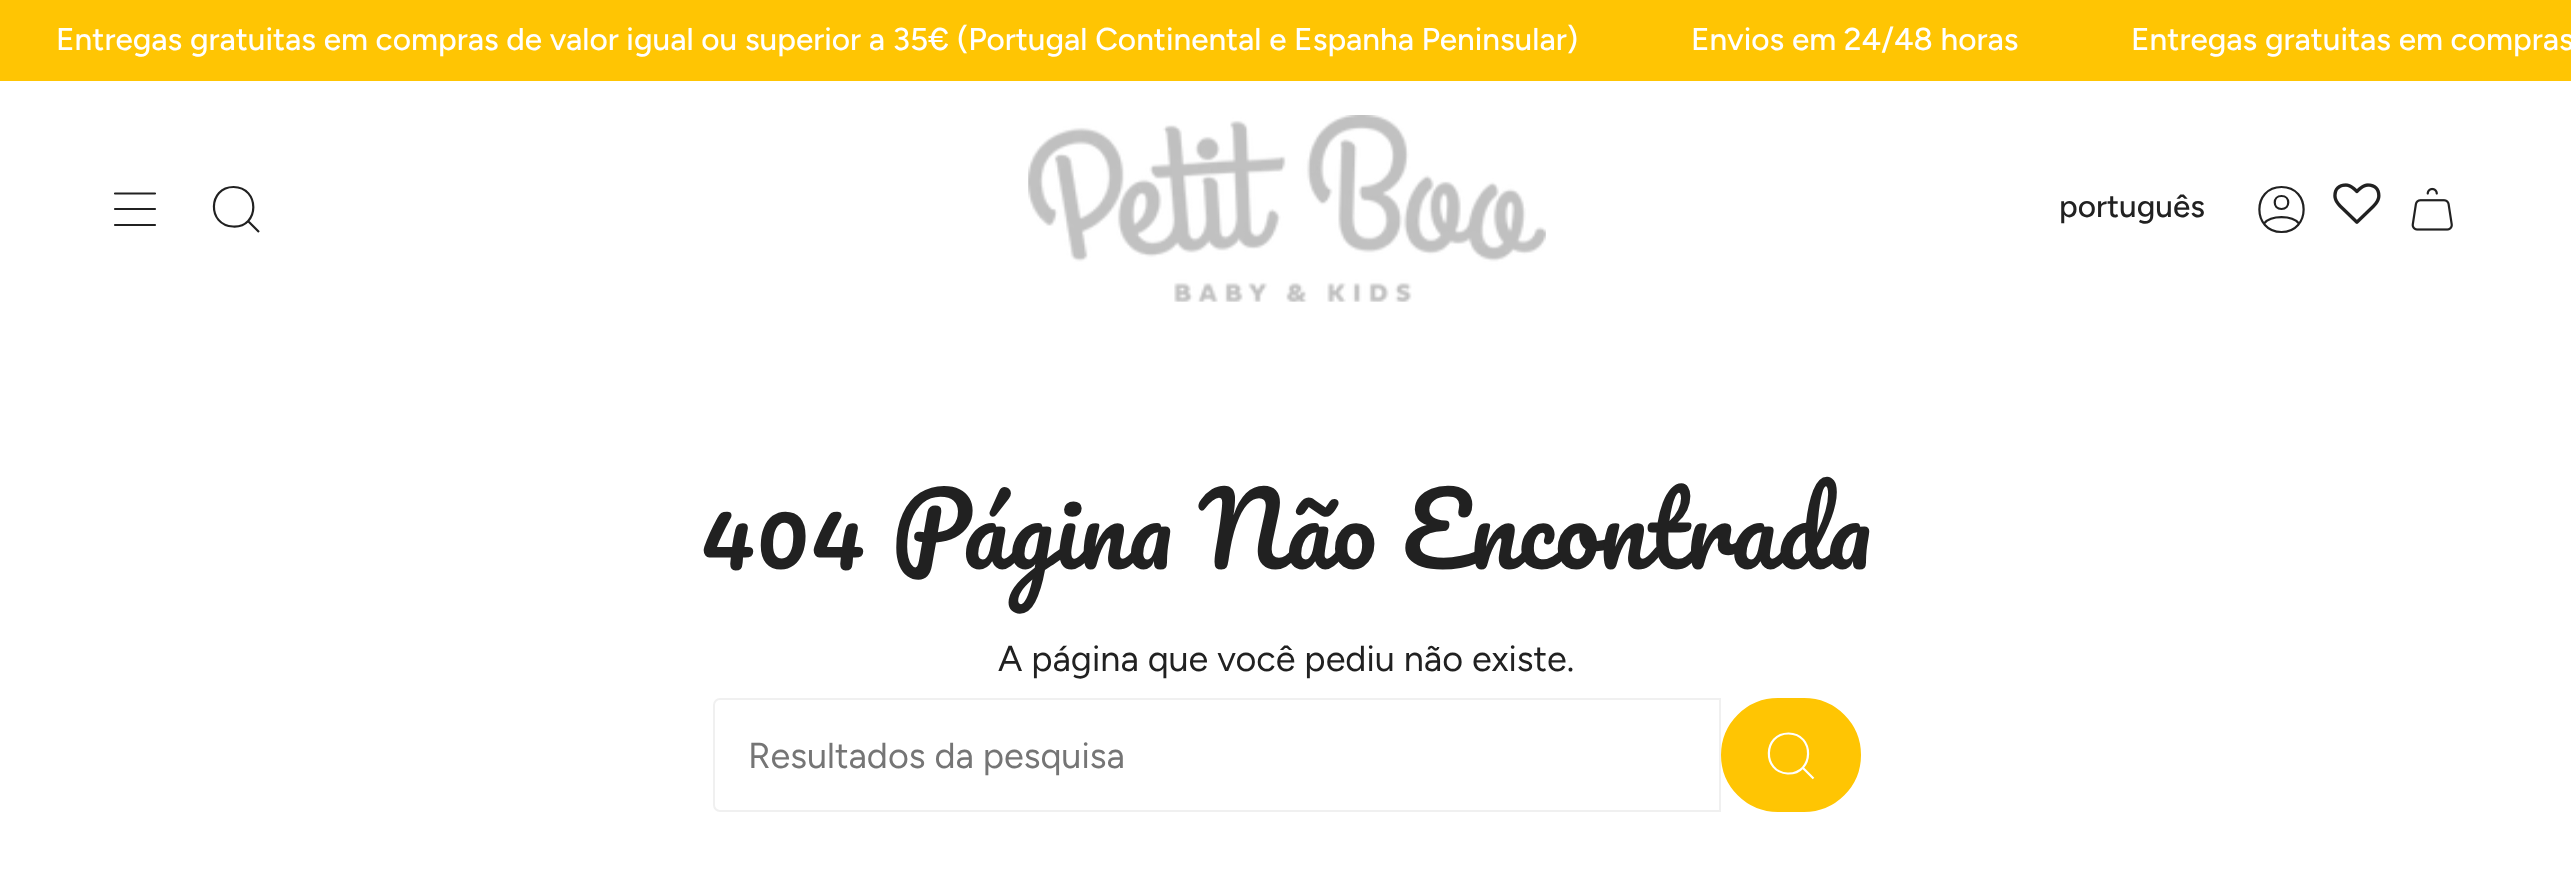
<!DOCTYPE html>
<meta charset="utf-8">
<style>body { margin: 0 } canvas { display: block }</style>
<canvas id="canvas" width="2571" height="879"></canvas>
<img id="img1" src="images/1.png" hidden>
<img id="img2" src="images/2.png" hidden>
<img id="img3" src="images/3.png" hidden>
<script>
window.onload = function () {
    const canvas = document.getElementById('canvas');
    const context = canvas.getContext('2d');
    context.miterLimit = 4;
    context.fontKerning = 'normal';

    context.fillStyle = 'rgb(255, 255, 255)';
    context.fillRect(0, 0, 2571, 879);
    context.fillStyle = 'rgb(255, 197, 3)';
    context.fillRect(0, 0, 2571, 81);
    context.beginPath();
    context.moveTo(115, 193.5);
    context.lineTo(155, 193.5);
    context.moveTo(115, 209);
    context.lineTo(155, 209);
    context.moveTo(115, 225);
    context.lineTo(155, 225);
    context.strokeStyle = 'rgb(33, 33, 33)';
    context.lineWidth = 2.2;
    context.lineCap = 'round';
    context.lineJoin = 'round';
    context.stroke();
    context.beginPath();
    context.moveTo(233.5, 187);
    context.bezierCurveTo(260, 187, 260, 228, 233, 226.5);
    context.bezierCurveTo(207, 225.5, 208, 187, 233.5, 187);
    context.closePath();
    context.moveTo(248, 221);
    context.lineTo(259, 232);
    context.lineCap = 'butt';
    context.lineJoin = 'miter';
    context.stroke();
    context.drawImage(document.getElementById('img1'), 1028, 115, 518, 187);
    context.beginPath();
    context.moveTo(2281.5, 187);
    context.bezierCurveTo(2252, 187, 2252, 232, 2281.5, 232);
    context.bezierCurveTo(2311, 232, 2311, 187, 2281.5, 187);
    context.closePath();
    context.moveTo(2264, 223.5);
    context.bezierCurveTo(2271, 215, 2292, 215, 2299, 223.5);
    context.moveTo(2281.5, 209);
    context.bezierCurveTo(2290.5, 209, 2290.5, 196, 2281.5, 196);
    context.bezierCurveTo(2272.5, 196, 2272.5, 209, 2281.5, 209);
    context.closePath();
    context.lineCap = 'round';
    context.lineJoin = 'round';
    context.stroke();
    context.drawImage(document.getElementById('img2'), 2333, 183, 48, 41);
    context.drawImage(document.getElementById('img3'), 2411, 187, 42, 44);
    context.beginPath();
    context.roundRect(714, 699, 1006, 112, [6, 0, 0, 6]);
    context.strokeStyle = 'rgb(240, 240, 240)';
    context.lineWidth = 2;
    context.lineJoin = 'miter';
    context.stroke();
    context.beginPath();
    context.roundRect(1722, 699, 138, 112, 56);
    context.fill();
    context.strokeStyle = 'rgb(255, 197, 3)';
    context.stroke();
    context.beginPath();
    context.moveTo(1788.5, 733.5);
    context.bezierCurveTo(1815, 733.5, 1814.5, 774.5, 1787.5, 773.5);
    context.bezierCurveTo(1762, 772, 1763, 733.5, 1788.5, 733.5);
    context.closePath();
    context.moveTo(1802.5, 767.5);
    context.lineTo(1813.5, 778.5);
    context.strokeStyle = 'rgb(255, 255, 255)';
    context.lineWidth = 2.2;
    context.lineCap = 'butt';
    context.stroke();
    context.font = '500 31.5px Figtree';
    context.fillStyle = 'rgb(255, 255, 255)';
    context.fillText('Entregas gratuitas em compras de valor igual ou superior a 35€ (Portugal Continental e Espanha Peninsular)', 56, 50);
    context.fillText('Envios em 24/48 horas', 1691, 50);
    context.fillText('Entregas gratuitas em compras', 2131, 50);
    context.fillStyle = 'rgb(33, 33, 33)';
    context.fillText('português', 2059, 217);
    context.font = '98.25px Pacifico';
    context.fillText('404 Página Não Encontrada', 699, 569);
    context.font = '36px Figtree';
    context.fillText('A página que você pediu não existe.', 998, 671);
    context.fillStyle = 'rgb(117, 117, 117)';
    context.fillText('Resultados da pesquisa', 748, 768);
};
</script>
